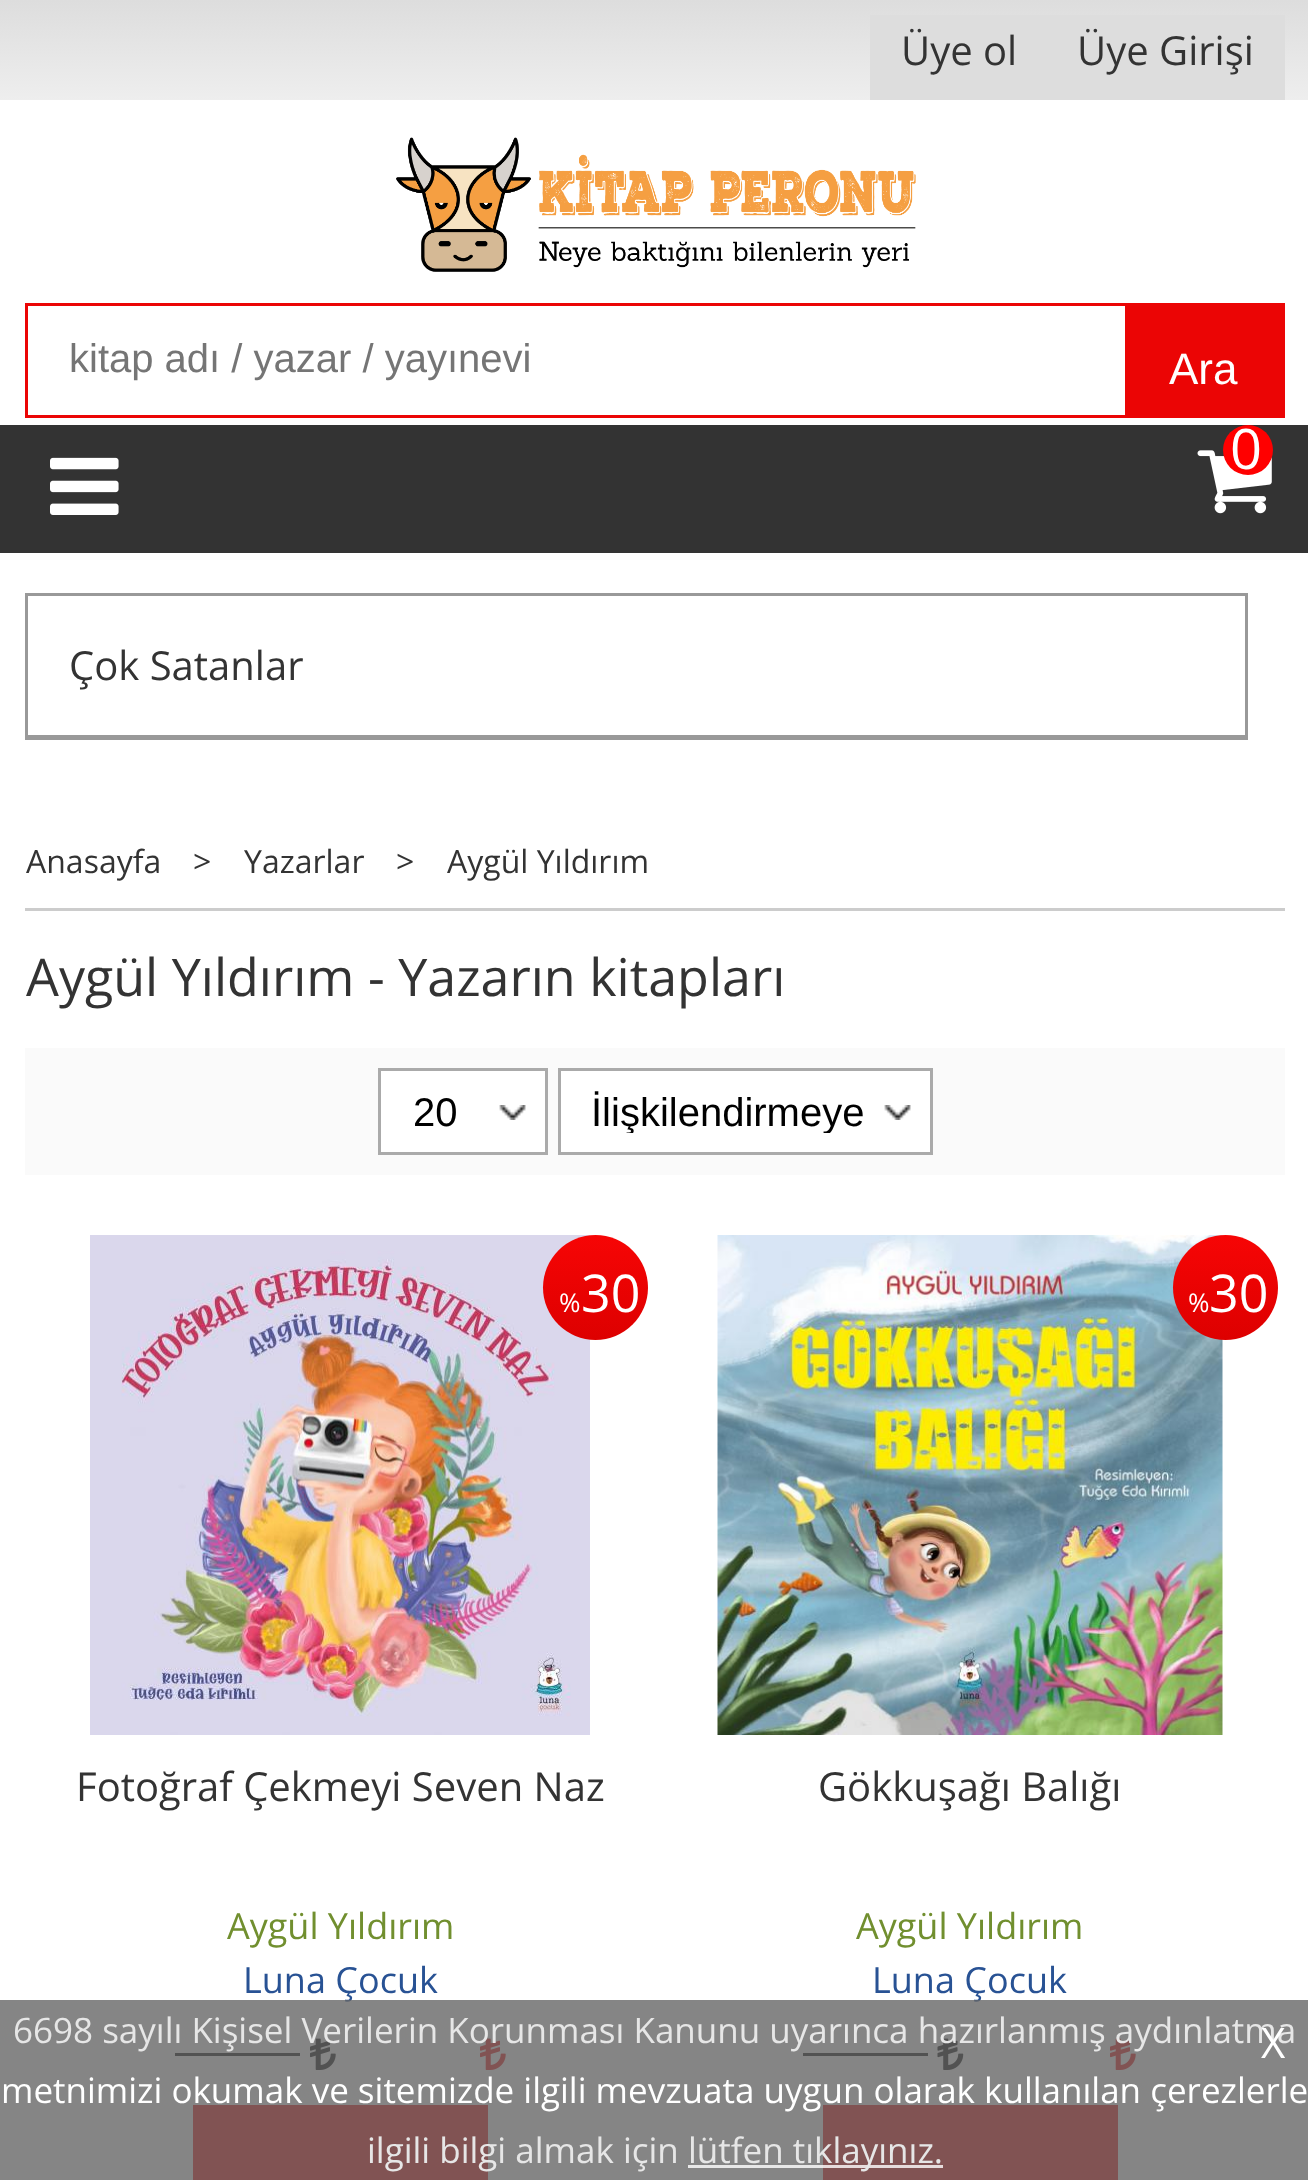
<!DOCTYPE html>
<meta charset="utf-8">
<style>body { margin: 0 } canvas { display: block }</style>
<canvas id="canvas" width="1308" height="2180"></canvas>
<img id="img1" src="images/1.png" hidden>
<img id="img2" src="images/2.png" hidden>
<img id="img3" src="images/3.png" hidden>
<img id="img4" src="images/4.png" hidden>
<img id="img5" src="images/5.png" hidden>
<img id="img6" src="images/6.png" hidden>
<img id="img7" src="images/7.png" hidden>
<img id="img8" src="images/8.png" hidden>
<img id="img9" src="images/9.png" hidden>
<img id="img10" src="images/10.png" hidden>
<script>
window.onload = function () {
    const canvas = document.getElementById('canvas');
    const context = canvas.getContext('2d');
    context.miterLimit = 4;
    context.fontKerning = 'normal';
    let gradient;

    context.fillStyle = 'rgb(255, 255, 255)';
    context.fillRect(0, 0, 1308, 2180);
    gradient = context.createLinearGradient(655, 0, 655, 100);
    gradient.addColorStop(0, 'rgb(221, 221, 221)');
    gradient.addColorStop(1, 'rgb(238, 238, 238)');
    context.fillStyle = gradient;
    context.fillRect(0, 0, 1308, 100);
    context.fillStyle = 'rgb(221, 221, 221)';
    context.fillRect(870, 15, 415, 85);
    context.drawImage(document.getElementById('img1'), 396, 137, 520, 135);
    context.strokeStyle = 'rgb(235, 5, 5)';
    context.lineWidth = 3;
    context.strokeRect(26.5, 304.5, 1257, 112);
    context.fillStyle = 'rgb(235, 5, 5)';
    context.fillRect(1125, 306, 157, 109);
    context.fillStyle = 'rgb(51, 51, 51)';
    context.fillRect(0, 425, 1308, 128);
    context.drawImage(document.getElementById('img2'), 1197, 450, 75, 64);
    context.fillStyle = 'rgb(255, 0, 0)';
    context.beginPath();
    context.arc(1248, 450, 25, 0, 2 * Math.PI);
    context.fill();
    context.drawImage(document.getElementById('img3'), 50, 457, 69, 58);
    context.strokeStyle = 'rgb(153, 153, 153)';
    context.strokeRect(26.5, 594.5, 1220, 144);
    context.fillStyle = 'rgb(153, 153, 153)';
    context.fillRect(28, 735, 1217, 2);
    context.fillStyle = 'rgb(204, 204, 204)';
    context.fillRect(25, 908, 1260, 3);
    context.fillStyle = 'rgb(250, 250, 250)';
    context.fillRect(25, 1048, 1260, 127);
    context.fillStyle = 'rgb(255, 255, 255)';
    context.fillRect(381, 1071, 164, 81);
    context.drawImage(document.getElementById('img4'), 499, 1105, 27, 15);
    context.strokeStyle = 'rgb(170, 170, 170)';
    context.strokeRect(379.5, 1069.5, 167, 84);
    context.fillRect(561, 1071, 369, 81);
    context.drawImage(document.getElementById('img5'), 884, 1105, 27, 15);
    context.strokeRect(559.5, 1069.5, 372, 84);
    context.drawImage(document.getElementById('img6'), 90, 1235, 500, 500);
    gradient = context.createLinearGradient(595, 1235, 595, 1340);
    gradient.addColorStop(0, 'rgb(247, 5, 5)');
    gradient.addColorStop(1, 'rgb(221, 0, 0)');
    context.fillStyle = gradient;
    context.beginPath();
    context.arc(595.5, 1287.5, 52.5, 0, 2 * Math.PI);
    context.fill();
    context.fillStyle = 'rgb(0, 0, 0)';
    context.fillRect(175, 2053, 125, 3);
    context.drawImage(document.getElementById('img7'), 310, 2038, 26, 32);
    context.drawImage(document.getElementById('img8'), 480, 2038, 26, 32);
    context.fillStyle = 'rgb(235, 5, 5)';
    context.fillRect(193, 2105, 295, 75);
    context.drawImage(document.getElementById('img9'), 717, 1235, 506, 500);
    gradient = context.createLinearGradient(1225, 1235, 1225, 1340);
    gradient.addColorStop(0, 'rgb(247, 5, 5)');
    gradient.addColorStop(1, 'rgb(221, 0, 0)');
    context.fillStyle = gradient;
    context.beginPath();
    context.arc(1225.5, 1287.5, 52.5, 0, 2 * Math.PI);
    context.fill();
    context.fillStyle = 'rgb(0, 0, 0)';
    context.fillRect(803, 2053, 125, 3);
    context.drawImage(document.getElementById('img10'), 937, 2038, 27, 32);
    context.drawImage(document.getElementById('img8'), 1110, 2038, 26, 32);
    context.fillStyle = 'rgb(235, 5, 5)';
    context.fillRect(823, 2105, 295, 75);
    context.font = '40px Open Sans';
    context.fillStyle = 'rgb(51, 51, 51)';
    context.fillText('Üye ol', 901, 65);
    context.fillText('Üye Girişi', 1077, 65);
    context.font = '40px Liberation Sans';
    context.fillStyle = 'rgb(117, 117, 117)';
    context.fillText('kitap adı / yazar / yayınevi', 69, 372);
    context.font = '44px Liberation Sans';
    context.fillStyle = 'rgb(255, 255, 255)';
    context.fillText('Ara', 1169, 384);
    context.font = '56px Open Sans';
    context.fillText('0', 1230, 469);
    context.font = '40px Open Sans';
    context.fillStyle = 'rgb(51, 51, 51)';
    context.fillText('Çok Satanlar', 69, 680);
    context.font = '32px Open Sans';
    context.fillText('Anasayfa', 26, 873);
    context.fillText('>', 193, 873);
    context.fillText('Yazarlar', 244, 873);
    context.fillText('>', 396, 873);
    context.fillText('Aygül Yıldırım', 447, 873);
    context.font = '52px Open Sans';
    context.fillText('Aygül Yıldırım - Yazarın kitapları', 26, 996);
    context.font = '40px Liberation Sans';
    context.fillStyle = 'rgb(0, 0, 0)';
    context.fillText('20', 413, 1126);
    context.save();
    context.beginPath();
    context.rect(593, 1090, 272, 43);
    context.clip();
    context.fillText('İlişkilendirmeye', 591, 1126);
    context.restore();
    context.font = '26px Open Sans';
    context.fillStyle = 'rgb(255, 255, 255)';
    context.fillText('%', 559, 1312);
    context.font = '52px Open Sans';
    context.fillText('30', 581, 1312);
    context.font = '40px Open Sans';
    context.fillStyle = 'rgb(51, 51, 51)';
    context.fillText('Fotoğraf Çekmeyi Seven Naz', 76, 1801);
    context.font = '36px Open Sans';
    context.fillStyle = 'rgb(113, 143, 47)';
    context.fillText('Aygül Yıldırım', 227, 1939);
    context.fillStyle = 'rgb(40, 82, 148)';
    context.fillText('Luna Çocuk', 243, 1993);
    context.font = '26px Open Sans';
    context.fillStyle = 'rgb(255, 255, 255)';
    context.fillText('%', 1188, 1312);
    context.font = '52px Open Sans';
    context.fillText('30', 1209, 1312);
    context.font = '40px Open Sans';
    context.fillStyle = 'rgb(51, 51, 51)';
    context.fillText('Gökkuşağı Balığı', 818, 1801);
    context.font = '36px Open Sans';
    context.fillStyle = 'rgb(113, 143, 47)';
    context.fillText('Aygül Yıldırım', 856, 1939);
    context.fillStyle = 'rgb(40, 82, 148)';
    context.fillText('Luna Çocuk', 872, 1993);
    context.fillStyle = 'rgba(102, 102, 102, 0.8)';
    context.fillRect(0, 2000, 1308, 180);
    context.font = '35px Open Sans';
    context.fillStyle = 'rgb(230, 230, 230)';
    context.fillText('6698 sayılı Kişisel Verilerin Korunması Kanunu uyarınca hazırlanmış aydınlatma', 13, 2043);
    context.font = '42px Open Sans';
    context.fillStyle = 'rgb(255, 255, 255)';
    context.fillText('X', 1261, 2058);
    context.font = '35px Open Sans';
    context.fillText('metnimizi okumak ve sitemizde ilgili mevzuata uygun olarak kullanılan çerezlerle', 1, 2103);
    context.fillStyle = 'rgb(230, 230, 230)';
    context.fillText('ilgili bilgi almak için', 367, 2163);
    context.fillStyle = 'rgba(255, 255, 255, 0.8)';
    context.fillRect(688, 2165, 255, 3);
    context.fillStyle = 'rgb(230, 230, 230)';
    context.fillText('lütfen tıklayınız.', 688, 2163);
};
</script>
